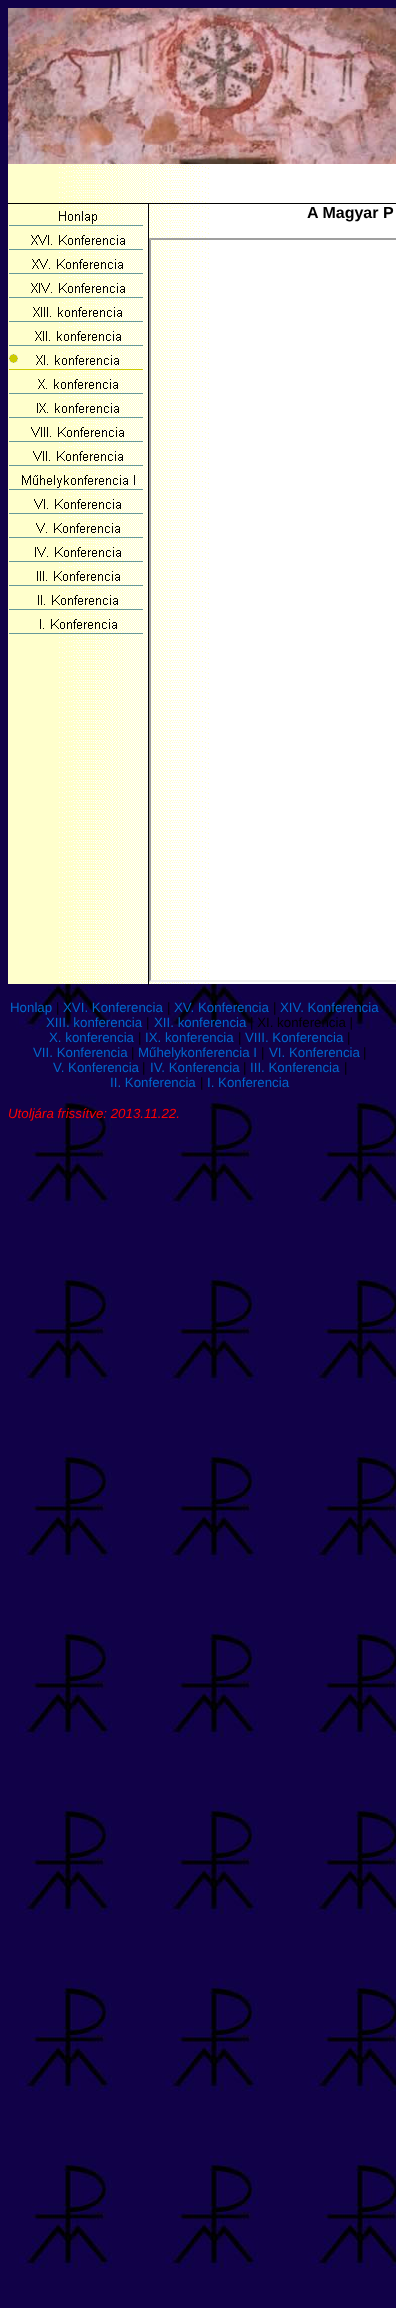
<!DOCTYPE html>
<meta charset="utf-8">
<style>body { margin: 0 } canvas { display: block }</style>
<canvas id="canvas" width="396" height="2308"></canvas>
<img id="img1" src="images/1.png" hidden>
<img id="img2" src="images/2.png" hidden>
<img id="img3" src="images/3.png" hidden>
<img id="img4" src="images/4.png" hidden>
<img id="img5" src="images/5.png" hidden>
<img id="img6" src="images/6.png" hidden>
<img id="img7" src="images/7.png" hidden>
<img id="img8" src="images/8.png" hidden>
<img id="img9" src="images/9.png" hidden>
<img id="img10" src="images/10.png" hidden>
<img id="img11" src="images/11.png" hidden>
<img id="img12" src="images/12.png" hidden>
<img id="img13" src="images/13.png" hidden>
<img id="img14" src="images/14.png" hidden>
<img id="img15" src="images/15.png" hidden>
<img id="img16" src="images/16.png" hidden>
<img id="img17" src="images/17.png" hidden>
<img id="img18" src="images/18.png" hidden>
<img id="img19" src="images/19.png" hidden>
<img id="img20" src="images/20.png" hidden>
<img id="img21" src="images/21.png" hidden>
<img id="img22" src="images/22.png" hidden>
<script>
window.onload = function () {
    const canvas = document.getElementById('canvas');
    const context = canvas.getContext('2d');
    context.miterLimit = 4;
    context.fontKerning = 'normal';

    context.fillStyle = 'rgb(255, 255, 255)';
    context.fillRect(0, 0, 396, 2308);
    context.drawImage(document.getElementById('img1'), 0, 0, 396, 2308);
    context.drawImage(document.getElementById('img2'), 8, 8, 388, 156);
    context.drawImage(document.getElementById('img3'), 8, 164, 388, 40);
    context.drawImage(document.getElementById('img4'), 8, 204, 388, 780);
    context.fillStyle = 'rgb(0, 0, 0)';
    context.fillRect(148, 984, 1, 1);
    context.drawImage(document.getElementById('img5'), 9, 211, 134, 15);
    context.drawImage(document.getElementById('img6'), 9, 235, 134, 15);
    context.drawImage(document.getElementById('img7'), 9, 259, 134, 15);
    context.drawImage(document.getElementById('img8'), 9, 283, 134, 15);
    context.drawImage(document.getElementById('img9'), 9, 307, 134, 15);
    context.drawImage(document.getElementById('img10'), 9, 331, 134, 15);
    context.drawImage(document.getElementById('img11'), 9, 354, 134, 16);
    context.drawImage(document.getElementById('img12'), 9, 379, 134, 15);
    context.drawImage(document.getElementById('img13'), 9, 403, 134, 15);
    context.drawImage(document.getElementById('img14'), 9, 427, 134, 15);
    context.drawImage(document.getElementById('img15'), 9, 451, 134, 15);
    context.drawImage(document.getElementById('img16'), 9, 475, 134, 15);
    context.drawImage(document.getElementById('img17'), 9, 499, 134, 15);
    context.drawImage(document.getElementById('img18'), 9, 523, 134, 15);
    context.drawImage(document.getElementById('img19'), 9, 547, 134, 15);
    context.drawImage(document.getElementById('img20'), 9, 571, 134, 15);
    context.drawImage(document.getElementById('img21'), 9, 595, 134, 15);
    context.drawImage(document.getElementById('img22'), 9, 619, 134, 15);
    context.fillStyle = 'rgb(159, 159, 159)';
    context.beginPath();
    context.moveTo(149, 238);
    context.lineTo(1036, 238);
    context.lineTo(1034, 240);
    context.lineTo(151, 240);
    context.closePath();
    context.fill();
    context.fillStyle = 'rgb(238, 238, 238)';
    context.beginPath();
    context.moveTo(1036, 982);
    context.lineTo(149, 982);
    context.lineTo(151, 980);
    context.lineTo(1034, 980);
    context.closePath();
    context.fill();
    context.fillStyle = 'rgb(159, 159, 159)';
    context.beginPath();
    context.moveTo(149, 982);
    context.lineTo(149, 238);
    context.lineTo(151, 240);
    context.lineTo(151, 980);
    context.closePath();
    context.fill();
    context.font = 'bold 16px Liberation Sans';
    context.fillStyle = 'rgb(0, 0, 0)';
    context.fillText('A Magyar P', 307, 218);
    context.font = '13.3px Liberation Sans';
    context.fillStyle = 'rgb(0, 102, 204)';
    context.fillText('Honlap', 10, 1012);
    context.fillStyle = 'rgb(0, 0, 0)';
    context.fillText('|', 56, 1012);
    context.fillStyle = 'rgb(0, 102, 204)';
    context.fillText('XVI. Konferencia', 63, 1012);
    context.fillStyle = 'rgb(0, 0, 0)';
    context.fillText('|', 167, 1012);
    context.fillStyle = 'rgb(0, 102, 204)';
    context.fillText('XV. Konferencia', 174, 1012);
    context.fillStyle = 'rgb(0, 0, 0)';
    context.fillText('|', 273, 1012);
    context.fillStyle = 'rgb(0, 102, 204)';
    context.fillText('XIV. Konferencia', 280, 1012);
    context.fillText('XIII. konferencia', 46, 1027);
    context.fillStyle = 'rgb(0, 0, 0)';
    context.fillText('|', 146, 1027);
    context.fillStyle = 'rgb(0, 102, 204)';
    context.fillText('XII. konferencia', 154, 1027);
    context.fillStyle = 'rgb(0, 0, 0)';
    context.fillText('| XI. konferencia |', 250, 1027);
    context.fillStyle = 'rgb(0, 102, 204)';
    context.fillText('X. konferencia', 49, 1042);
    context.fillStyle = 'rgb(0, 0, 0)';
    context.fillText('|', 138, 1042);
    context.fillStyle = 'rgb(0, 102, 204)';
    context.fillText('IX. konferencia', 145, 1042);
    context.fillStyle = 'rgb(0, 0, 0)';
    context.fillText('|', 238, 1042);
    context.fillStyle = 'rgb(0, 102, 204)';
    context.fillText('VIII. Konferencia', 245, 1042);
    context.fillStyle = 'rgb(0, 0, 0)';
    context.fillText('|', 347, 1042);
    context.fillStyle = 'rgb(0, 102, 204)';
    context.fillText('VII. Konferencia', 33, 1057);
    context.fillStyle = 'rgb(0, 0, 0)';
    context.fillText('|', 131, 1057);
    context.fillStyle = 'rgb(0, 102, 204)';
    context.fillText('Műhelykonferencia I', 138, 1057);
    context.fillStyle = 'rgb(0, 0, 0)';
    context.fillText('|', 261, 1057);
    context.fillStyle = 'rgb(0, 102, 204)';
    context.fillText('VI. Konferencia', 269, 1057);
    context.fillStyle = 'rgb(0, 0, 0)';
    context.fillText('|', 363, 1057);
    context.fillStyle = 'rgb(0, 102, 204)';
    context.fillText('V. Konferencia', 53, 1072);
    context.fillStyle = 'rgb(0, 0, 0)';
    context.fillText('|', 142, 1072);
    context.fillStyle = 'rgb(0, 102, 204)';
    context.fillText('IV. Konferencia', 150, 1072);
    context.fillStyle = 'rgb(0, 0, 0)';
    context.fillText('|', 243, 1072);
    context.fillStyle = 'rgb(0, 102, 204)';
    context.fillText('III. Konferencia', 250, 1072);
    context.fillStyle = 'rgb(0, 0, 0)';
    context.fillText('|', 344, 1072);
    context.fillStyle = 'rgb(0, 102, 204)';
    context.fillText('II. Konferencia', 110, 1087);
    context.fillStyle = 'rgb(0, 0, 0)';
    context.fillText('|', 200, 1087);
    context.fillStyle = 'rgb(0, 102, 204)';
    context.fillText('I. Konferencia', 207, 1087);
    context.font = 'italic 13.3px Liberation Sans';
    context.fillStyle = 'rgb(255, 0, 0)';
    context.fillText('Utoljára frissítve: 2013.11.22.', 8, 1118);
};
</script>
